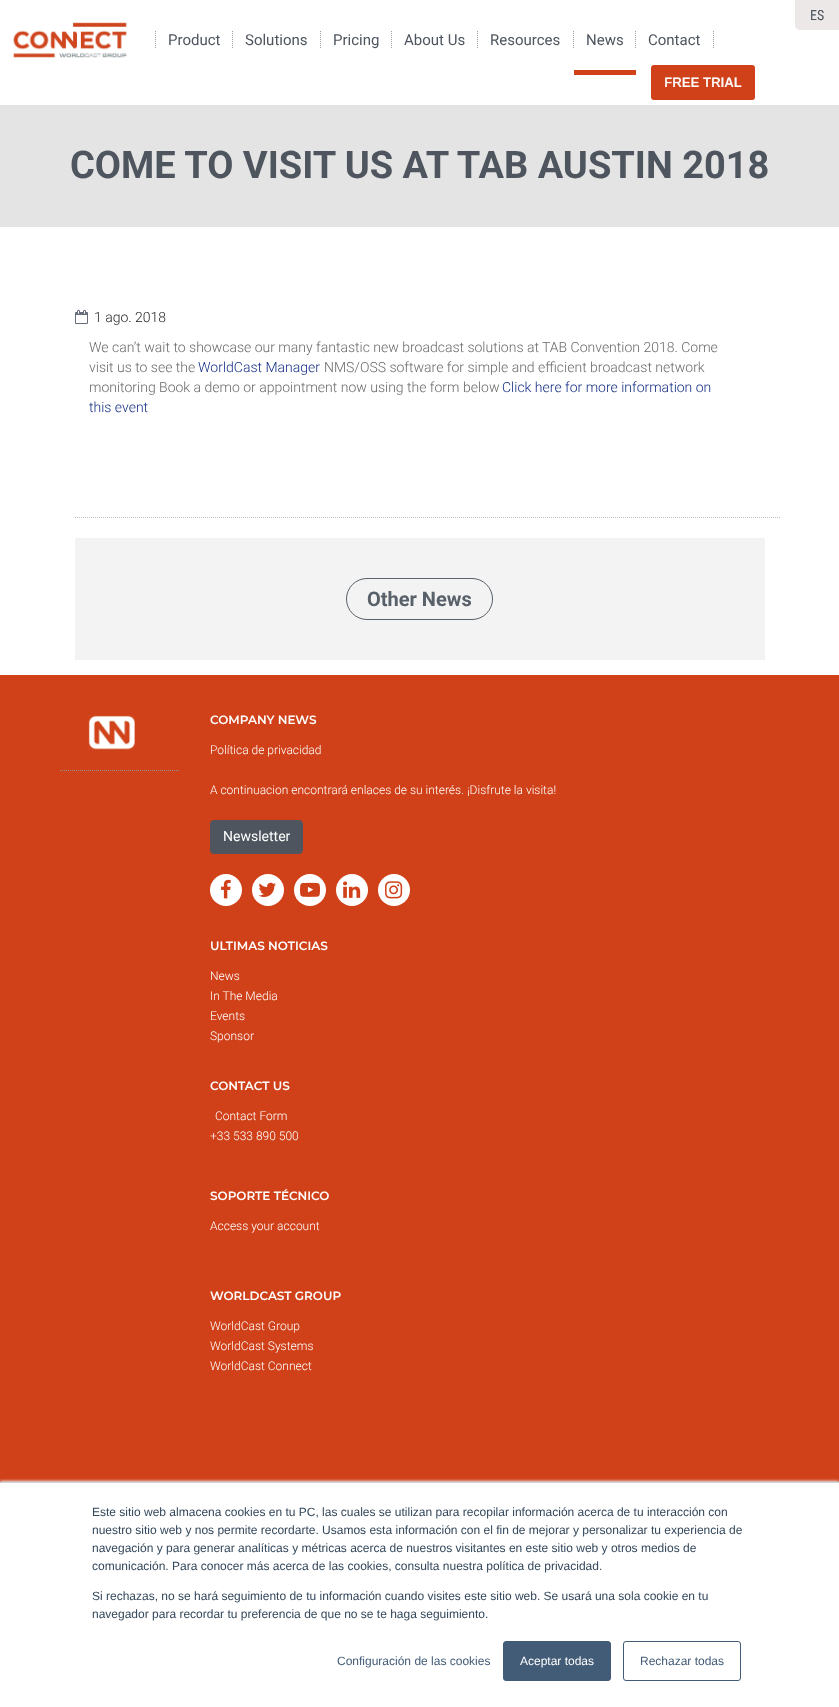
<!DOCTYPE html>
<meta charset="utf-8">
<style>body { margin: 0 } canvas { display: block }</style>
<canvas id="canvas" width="839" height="1707"></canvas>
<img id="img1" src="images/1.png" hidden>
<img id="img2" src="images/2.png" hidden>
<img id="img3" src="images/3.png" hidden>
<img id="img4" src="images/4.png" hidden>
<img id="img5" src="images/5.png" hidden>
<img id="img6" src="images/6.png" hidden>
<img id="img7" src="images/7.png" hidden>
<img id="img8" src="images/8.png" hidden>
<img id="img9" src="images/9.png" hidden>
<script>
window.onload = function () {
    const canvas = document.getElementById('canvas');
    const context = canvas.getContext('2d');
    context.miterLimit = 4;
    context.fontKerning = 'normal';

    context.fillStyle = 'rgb(255, 255, 255)';
    context.fillRect(0, 0, 839, 1707);
    context.fillStyle = 'rgb(237, 232, 232)';
    context.beginPath();
    context.roundRect(795, 0, 44, 30, [0, 0, 0, 5]);
    context.fill();
    context.drawImage(document.getElementById('img1'), 13, 22, 114, 36);
    context.beginPath();
    context.moveTo(232.5, 31);
    context.lineTo(232.5, 49);
    context.strokeStyle = 'rgb(157, 157, 157)';
    context.setLineDash([1, 1]);
    context.stroke();
    context.beginPath();
    context.moveTo(155.5, 31);
    context.lineTo(155.5, 49);
    context.stroke();
    context.beginPath();
    context.moveTo(320.5, 31);
    context.lineTo(320.5, 49);
    context.stroke();
    context.beginPath();
    context.moveTo(391.5, 31);
    context.lineTo(391.5, 49);
    context.stroke();
    context.beginPath();
    context.moveTo(477.5, 31);
    context.lineTo(477.5, 49);
    context.stroke();
    context.beginPath();
    context.moveTo(573.5, 31);
    context.lineTo(573.5, 49);
    context.stroke();
    context.fillStyle = 'rgb(208, 65, 25)';
    context.fillRect(574, 70, 62, 5);
    context.beginPath();
    context.moveTo(635.5, 31);
    context.lineTo(635.5, 49);
    context.stroke();
    context.beginPath();
    context.moveTo(713.5, 31);
    context.lineTo(713.5, 49);
    context.stroke();
    context.drawImage(document.getElementById('img2'), 651, 65, 104, 35);
    context.fillStyle = 'rgb(228, 228, 228)';
    context.fillRect(0, 105, 839, 122);
    context.beginPath();
    context.moveTo(75, 517.5);
    context.lineTo(780, 517.5);
    context.strokeStyle = 'rgb(193, 193, 193)';
    context.stroke();
    context.drawImage(document.getElementById('img3'), 75, 310, 13, 14);
    context.fillStyle = 'rgb(243, 243, 243)';
    context.fillRect(75, 538, 690, 122);
    context.beginPath();
    context.roundRect(346.5, 578.5, 146, 41, 20.5);
    context.strokeStyle = 'rgb(88, 96, 105)';
    context.setLineDash([]);
    context.stroke();
    context.fillStyle = 'rgb(208, 65, 25)';
    context.fillRect(0, 675, 839, 807);
    context.beginPath();
    context.moveTo(60, 770.5);
    context.lineTo(180, 770.5);
    context.strokeStyle = 'rgb(145, 145, 145)';
    context.setLineDash([1, 1]);
    context.stroke();
    context.drawImage(document.getElementById('img4'), 88, 715, 47, 35);
    context.fillStyle = 'rgb(78, 85, 94)';
    context.beginPath();
    context.roundRect(210.5, 820.5, 92, 33, 3.5);
    context.fill();
    context.strokeStyle = 'rgb(78, 85, 94)';
    context.setLineDash([]);
    context.stroke();
    context.fillStyle = 'rgb(255, 255, 255)';
    context.beginPath();
    context.arc(226, 890, 16, 0, 2 * Math.PI);
    context.fill();
    context.drawImage(document.getElementById('img5'), 221, 879, 10, 20);
    context.beginPath();
    context.arc(268, 890, 16, 0, 2 * Math.PI);
    context.fill();
    context.drawImage(document.getElementById('img6'), 258, 882, 18, 15);
    context.beginPath();
    context.arc(310, 890, 16, 0, 2 * Math.PI);
    context.fill();
    context.drawImage(document.getElementById('img7'), 300, 882, 20, 15);
    context.beginPath();
    context.arc(352, 890, 16, 0, 2 * Math.PI);
    context.fill();
    context.drawImage(document.getElementById('img8'), 343, 881, 18, 17);
    context.beginPath();
    context.arc(394, 890, 16, 0, 2 * Math.PI);
    context.fill();
    context.drawImage(document.getElementById('img9'), 385, 881, 18, 18);
    context.fillStyle = 'rgb(234, 240, 246)';
    context.filter = 'blur(1.5px)';
    context.beginPath();
    context.rect(0, 1481, 839, 225);
    context.fill();
    context.filter = 'none';
    context.fillStyle = 'rgb(255, 255, 255)';
    context.fillRect(0, 1483, 839, 224);
    context.fillStyle = 'rgb(203, 214, 226)';
    context.fillRect(0, 1482, 839, 1);
    context.fillStyle = 'rgb(66, 91, 118)';
    context.beginPath();
    context.roundRect(503.5, 1641.5, 107, 39, 2.5);
    context.fill();
    context.strokeStyle = 'rgb(66, 91, 118)';
    context.stroke();
    context.beginPath();
    context.roundRect(623.5, 1641.5, 117, 39, 2.5);
    context.stroke();
    context.font = '14px Roboto Condensed';
    context.fillStyle = 'rgb(78, 85, 94)';
    context.fillText('ES', 810, 20);
    context.font = '15px Roboto';
    context.fillText('Product', 168, 45);
    context.fillText('Solutions', 245, 45);
    context.fillText('Pricing', 333, 45);
    context.fillText('About Us', 404, 45);
    context.fillText('Resources', 490, 45);
    context.fillText('News', 586, 45);
    context.fillText('Contact', 648, 45);
    context.font = 'bold 38px Roboto';
    context.fillText('COME TO VISIT US AT TAB AUSTIN 2018', 70, 178);
    context.font = '300 14px Roboto';
    context.fillStyle = 'rgb(34, 34, 34)';
    context.fillText('1 ago. 2018', 94, 322);
    context.fillStyle = 'rgb(105, 105, 105)';
    context.fillText('We can’t wait to showcase our many fantastic new broadcast solutions at TAB Convention 2018. Come', 89, 352);
    context.fillText('visit us to see the', 89, 372);
    context.fillStyle = 'rgb(17, 44, 131)';
    context.fillText('WorldCast Manager', 198, 372);
    context.fillStyle = 'rgb(105, 105, 105)';
    context.fillText('NMS/OSS software for simple and efficient broadcast network', 324, 372);
    context.fillText('monitoring Book a demo or appointment now using the form below', 89, 392);
    context.fillStyle = 'rgb(17, 44, 131)';
    context.fillText('Click here for more information on', 502, 392);
    context.fillText('this event', 89, 412);
    context.font = 'bold 20px Roboto';
    context.fillStyle = 'rgb(88, 96, 105)';
    context.fillText('Other News', 367, 606);
    context.font = '600 12px Montserrat';
    context.fillStyle = 'rgb(255, 255, 255)';
    context.fillText('COMPANY NEWS', 210, 724);
    context.font = '300 12px Roboto';
    context.fillText('Política de privacidad', 210, 754);
    context.fillText('A continuacion encontrará enlaces de su interés. ¡Disfrute la visita!', 210, 794);
    context.font = '14px Roboto';
    context.fillText('Newsletter', 223, 841);
    context.font = '600 12px Montserrat';
    context.fillText('ULTIMAS NOTICIAS', 210, 950);
    context.font = '300 12px Roboto';
    context.fillText('News', 210, 980);
    context.fillText('In The Media', 210, 1000);
    context.fillText('Events', 210, 1020);
    context.fillText('Sponsor', 210, 1040);
    context.font = '600 12px Montserrat';
    context.fillText('CONTACT US', 210, 1090);
    context.font = '300 12px Roboto';
    context.fillText('Contact Form', 215, 1120);
    context.fillText('+33 533 890 500', 210, 1140);
    context.font = '600 12px Montserrat';
    context.fillText('SOPORTE TÉCNICO', 210, 1200);
    context.font = '300 12px Roboto';
    context.fillText('Access your account', 210, 1230);
    context.font = '600 12px Montserrat';
    context.fillText('WORLDCAST GROUP', 210, 1300);
    context.font = '300 12px Roboto';
    context.fillText('WorldCast Group', 210, 1330);
    context.fillText('WorldCast Systems', 210, 1350);
    context.fillText('WorldCast Connect', 210, 1370);
    context.font = '12px Liberation Sans';
    context.fillStyle = 'rgb(51, 71, 91)';
    context.fillText('Este sitio web almacena cookies en tu PC, las cuales se utilizan para recopilar información acerca de tu interacción con', 92, 1516);
    context.fillText('nuestro sitio web y nos permite recordarte. Usamos esta información con el fin de mejorar y personalizar tu experiencia de', 92, 1534);
    context.fillText('navegación y para generar analíticas y métricas acerca de nuestros visitantes en este sitio web y otros medios de', 92, 1552);
    context.fillText('comunicación. Para conocer más acerca de las cookies, consulta nuestra política de privacidad.', 92, 1570);
    context.fillText('Si rechazas, no se hará seguimiento de tu información cuando visites este sitio web. Se usará una sola cookie en tu', 92, 1600);
    context.fillText('navegador para recordar tu preferencia de que no se te haga seguimiento.', 92, 1618);
    context.fillStyle = 'rgb(66, 91, 118)';
    context.fillText('Configuración de las cookies', 337, 1665);
    context.fillStyle = 'rgb(255, 255, 255)';
    context.fillText('Aceptar todas', 520, 1665);
    context.fillStyle = 'rgb(66, 91, 118)';
    context.fillText('Rechazar todas', 640, 1665);
};
</script>
